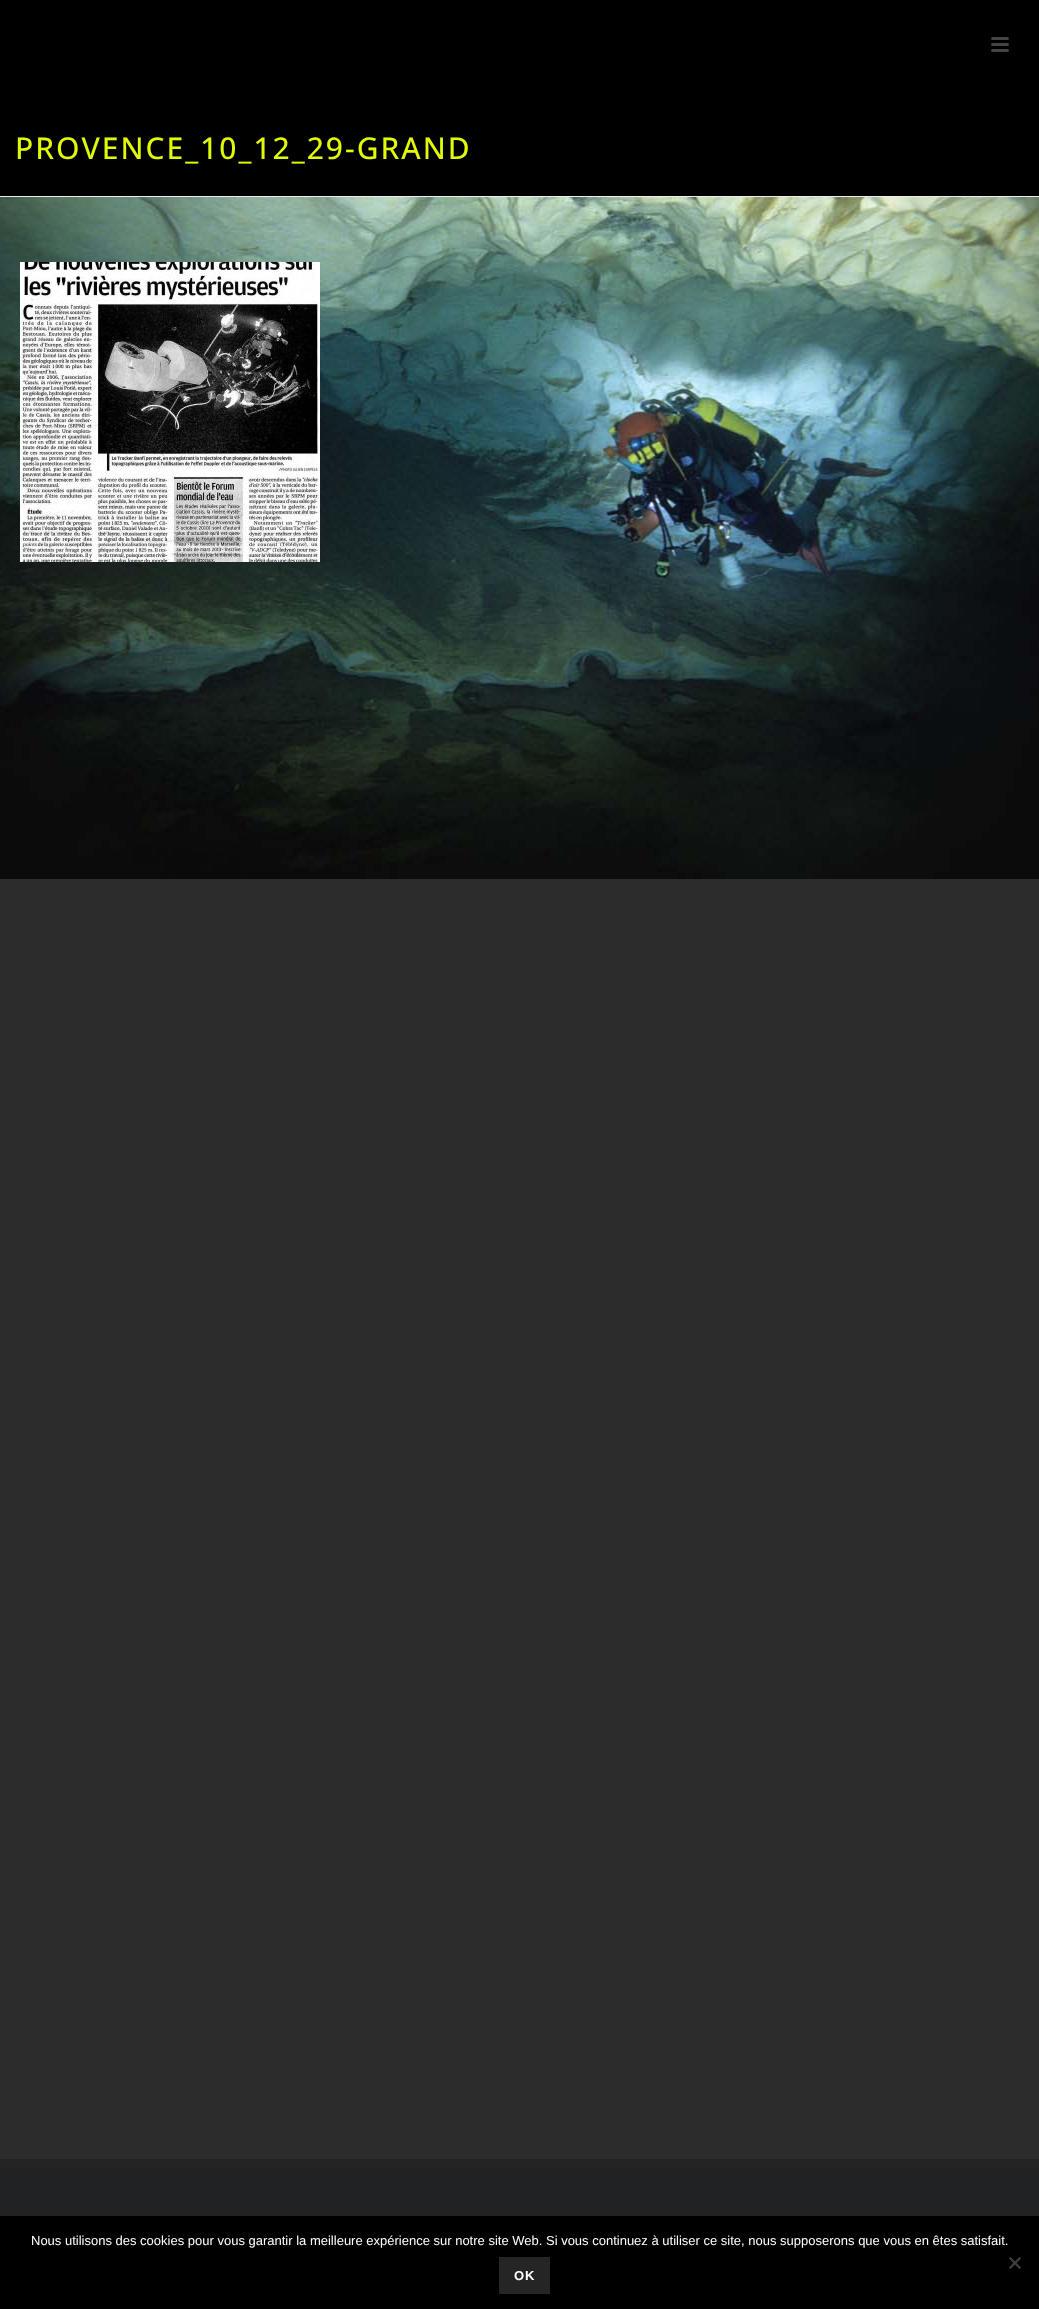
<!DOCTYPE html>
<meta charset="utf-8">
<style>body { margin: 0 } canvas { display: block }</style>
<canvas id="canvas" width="1039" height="2309"></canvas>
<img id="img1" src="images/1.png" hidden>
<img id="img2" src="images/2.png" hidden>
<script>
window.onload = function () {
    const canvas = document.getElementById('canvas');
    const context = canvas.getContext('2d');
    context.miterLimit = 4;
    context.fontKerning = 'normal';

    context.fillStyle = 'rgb(44, 44, 44)';
    context.fillRect(0, 0, 1039, 2309);
    context.fillStyle = 'rgb(0, 0, 0)';
    context.fillRect(0, 0, 1039, 196);
    context.fillStyle = 'rgb(237, 237, 237)';
    context.fillRect(0, 196, 1039, 1);
    context.fillStyle = 'rgb(68, 68, 68)';
    context.beginPath();
    context.roundRect(991, 37, 18, 3, 1.5);
    context.fill();
    context.beginPath();
    context.roundRect(991, 43, 18, 3, 1.5);
    context.fill();
    context.beginPath();
    context.roundRect(991, 49, 18, 3, 1.5);
    context.fill();
    context.drawImage(document.getElementById('img1'), 0, 197, 1039, 682);
    context.drawImage(document.getElementById('img2'), 20, 262, 300, 300);
    context.fillStyle = 'rgb(33, 34, 36)';
    context.fillRect(0, 2167, 1039, 49);
    context.fillStyle = 'rgb(36, 36, 36)';
    context.fillRect(0, 2159, 1039, 8);
    context.fillStyle = 'rgb(0, 0, 0)';
    context.fillRect(0, 2216, 1039, 93);
    context.fillStyle = 'rgb(64, 64, 64)';
    context.beginPath();
    context.moveTo(1019.5, 2257);
    context.lineTo(1021, 2258.5);
    context.lineTo(1010.5, 2269);
    context.lineTo(1009, 2267.5);
    context.closePath();
    context.fill();
    context.beginPath();
    context.moveTo(1009, 2258.5);
    context.lineTo(1010.5, 2257);
    context.lineTo(1021, 2267.5);
    context.lineTo(1019.5, 2269);
    context.closePath();
    context.fill();
    context.fillStyle = 'rgb(37, 37, 37)';
    context.fillRect(499, 2257, 51, 37);
    context.letterSpacing = '2px';
    context.font = '500 30px Open Sans';
    context.fillStyle = 'rgb(224, 251, 4)';
    context.fillText('PROVENCE_10_12_29-GRAND', 15, 159);
    context.letterSpacing = '0px';
    context.font = '13px Liberation Sans';
    context.fillStyle = 'rgb(255, 255, 255)';
    context.fillText('Nous utilisons des cookies pour vous garantir la meilleure expérience sur notre site Web. Si vous continuez à utiliser ce site, nous supposerons que vous en êtes satisfait.', 31, 2245);
    context.letterSpacing = '1px';
    context.font = 'bold 13px Liberation Sans';
    context.fillText('OK', 514, 2280);
};
</script>
